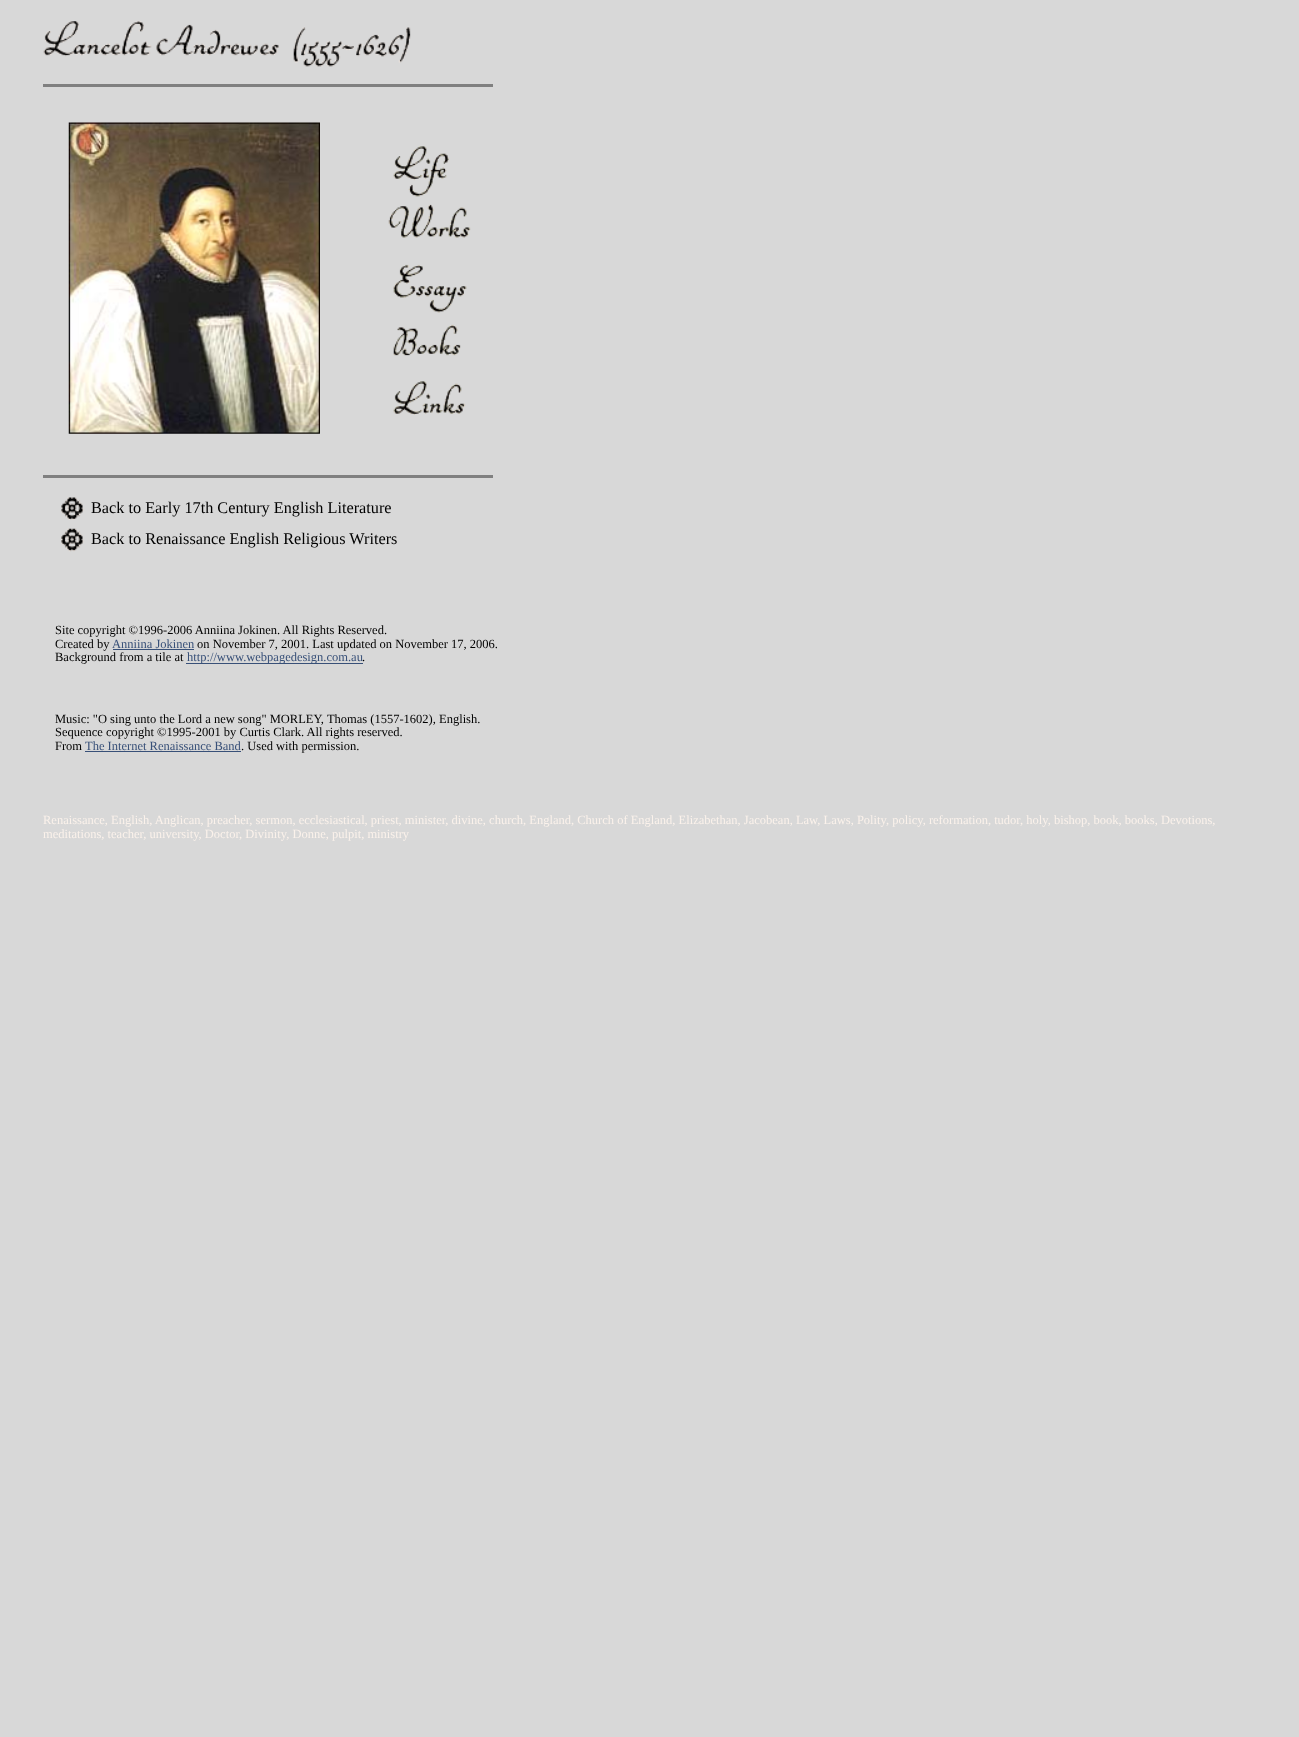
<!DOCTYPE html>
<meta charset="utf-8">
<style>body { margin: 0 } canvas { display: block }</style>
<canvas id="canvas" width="1299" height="1737"></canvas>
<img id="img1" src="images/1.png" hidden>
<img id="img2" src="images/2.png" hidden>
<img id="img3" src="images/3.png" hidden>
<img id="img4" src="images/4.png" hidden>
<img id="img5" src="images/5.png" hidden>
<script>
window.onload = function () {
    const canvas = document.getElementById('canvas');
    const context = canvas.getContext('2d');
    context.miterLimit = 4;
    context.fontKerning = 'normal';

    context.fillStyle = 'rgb(216, 216, 216)';
    context.fillRect(0, 0, 1299, 1737);
    context.drawImage(document.getElementById('img1'), 43, 21, 368, 46);
    context.fillStyle = 'rgb(128, 128, 128)';
    context.fillRect(43, 84, 450, 3);
    context.drawImage(document.getElementById('img2'), 68, 122, 252, 312);
    context.drawImage(document.getElementById('img3'), 388, 146, 83, 269);
    context.fillRect(43, 475, 450, 3);
    context.drawImage(document.getElementById('img4'), 61, 497, 23, 23);
    context.drawImage(document.getElementById('img5'), 61, 528, 23, 24);
    context.fillStyle = 'rgb(56, 80, 120)';
    context.fillRect(113, 649, 81, 1);
    context.fillRect(186, 663, 177, 1);
    context.fillRect(85, 751, 156, 1);
    context.font = '16.25px Liberation Serif';
    context.fillStyle = 'rgb(0, 0, 0)';
    context.fillText('Back to Early 17th Century English Literature', 91, 513);
    context.fillText('Back to Renaissance English Religious Writers', 91, 544);
    context.font = '12.5px Liberation Serif';
    context.fillText('Site copyright ©1996-2006 Anniina Jokinen. All Rights Reserved.', 55, 634);
    context.fillText('Created by', 55, 648);
    context.fillStyle = 'rgb(56, 80, 120)';
    context.fillText('Anniina Jokinen', 112, 648);
    context.fillStyle = 'rgb(0, 0, 0)';
    context.fillText('on November 7, 2001. Last updated on November 17, 2006.', 197, 648);
    context.fillText('Background from a tile at', 55, 661);
    context.fillStyle = 'rgb(56, 80, 120)';
    context.fillText('http://www.webpagedesign.com.au', 187, 661);
    context.fillStyle = 'rgb(0, 0, 0)';
    context.fillText('.', 362, 661);
    context.fillText('Music: "O sing unto the Lord a new song" MORLEY, Thomas (1557-1602), English.', 55, 723);
    context.fillText('Sequence copyright ©1995-2001 by Curtis Clark. All rights reserved.', 55, 736);
    context.fillText('From', 55, 750);
    context.fillStyle = 'rgb(56, 80, 120)';
    context.fillText('The Internet Renaissance Band', 85, 750);
    context.fillStyle = 'rgb(0, 0, 0)';
    context.fillText('. Used with permission.', 241, 750);
    context.fillStyle = 'rgb(251, 242, 235)';
    context.fillText('Renaissance, English, Anglican, preacher, sermon, ecclesiastical, priest, minister, divine, church, England, Church of England, Elizabethan, Jacobean, Law, Laws, Polity, policy, reformation, tudor, holy, bishop, book, books, Devotions,', 43, 824);
    context.fillText('meditations, teacher, university, Doctor, Divinity, Donne, pulpit, ministry', 43, 838);
};
</script>
